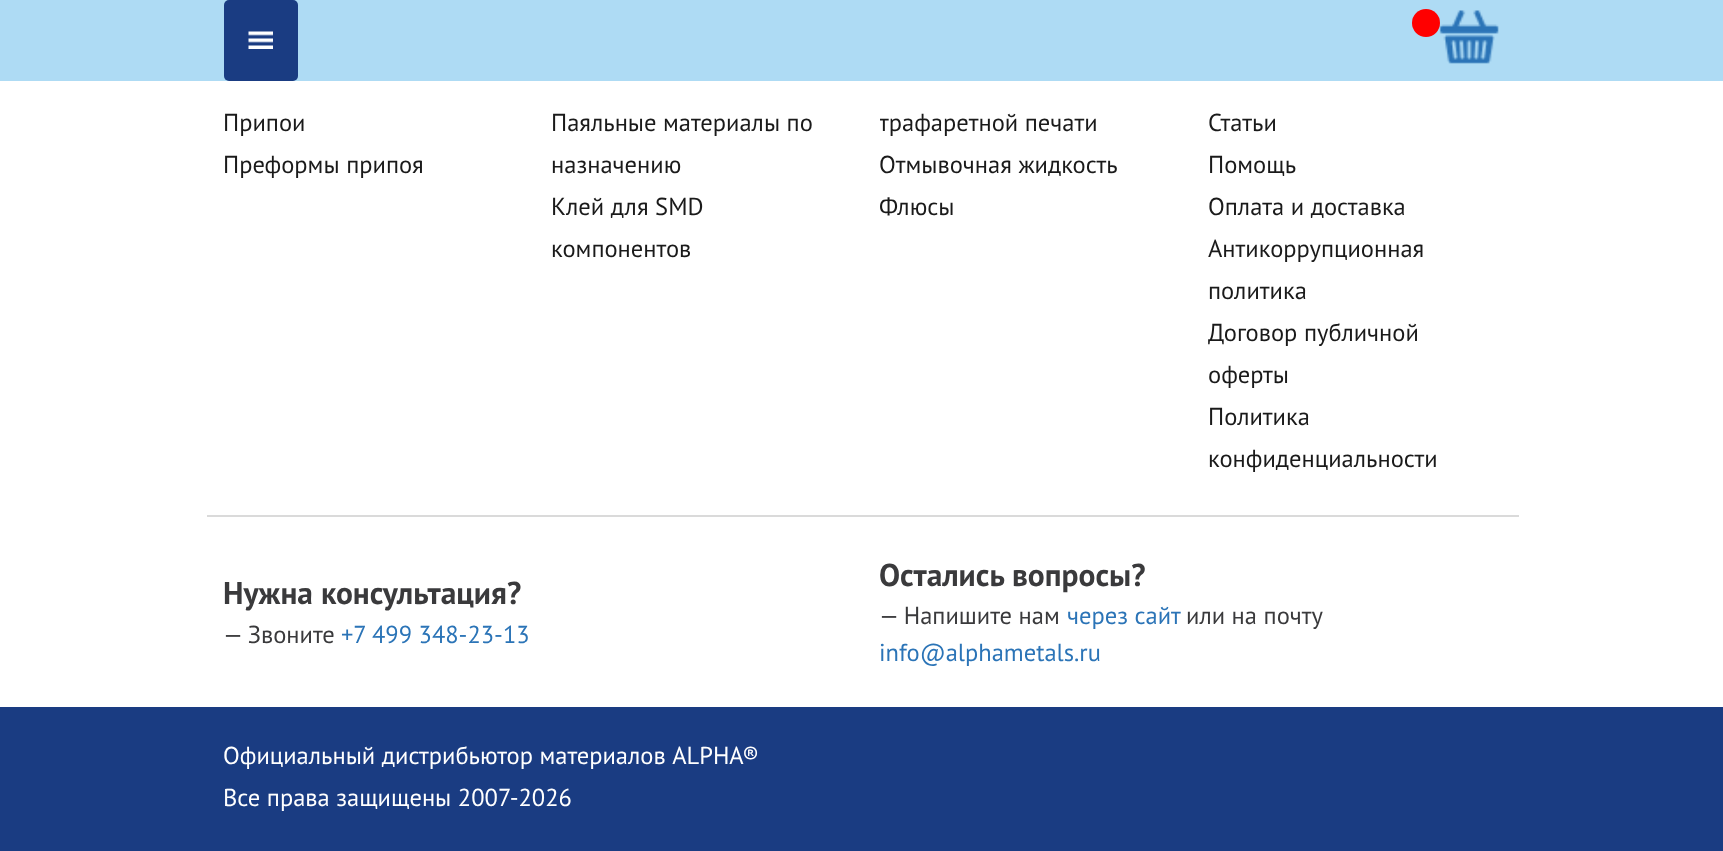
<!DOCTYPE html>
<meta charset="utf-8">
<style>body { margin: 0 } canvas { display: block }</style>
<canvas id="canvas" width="1723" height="851"></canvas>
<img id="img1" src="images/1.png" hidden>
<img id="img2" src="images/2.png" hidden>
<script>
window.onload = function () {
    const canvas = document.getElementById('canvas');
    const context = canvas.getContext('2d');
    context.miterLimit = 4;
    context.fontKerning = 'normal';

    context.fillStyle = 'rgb(255, 255, 255)';
    context.fillRect(0, 0, 1723, 851);
    context.fillStyle = 'rgb(174, 219, 244)';
    context.fillRect(0, 0, 1723, 81);
    context.fillStyle = 'rgb(26, 60, 130)';
    context.beginPath();
    context.roundRect(224, 0, 74, 81, 5);
    context.fill();
    context.drawImage(document.getElementById('img1'), 248, 31, 25, 18);
    context.fillStyle = 'rgb(255, 0, 0)';
    context.beginPath();
    context.arc(1426, 23, 14, 0, 2 * Math.PI);
    context.fill();
    context.drawImage(document.getElementById('img2'), 1439, 10, 60, 54);
    context.fillStyle = 'rgb(218, 218, 218)';
    context.fillRect(207, 515, 1312, 2);
    context.fillStyle = 'rgb(26, 60, 130)';
    context.fillRect(0, 707, 1723, 144);
    context.font = '24.5px PT Sans';
    context.fillStyle = 'rgb(26, 26, 26)';
    context.fillText('Припои', 223, 131);
    context.fillText('Преформы припоя', 223, 173);
    context.fillText('Паяльные материалы по', 551, 131);
    context.fillText('назначению', 551, 173);
    context.fillText('Клей для SMD', 551, 215);
    context.fillText('компонентов', 551, 257);
    context.save();
    context.beginPath();
    context.rect(880, 60, 293, 84);
    context.clip();
    context.fillText('трафаретной печати', 879, 131);
    context.restore();
    context.fillText('Отмывочная жидкость', 879, 173);
    context.fillText('Флюсы', 879, 215);
    context.fillText('Статьи', 1208, 131);
    context.fillText('Помощь', 1208, 173);
    context.fillText('Оплата и доставка', 1208, 215);
    context.fillText('Антикоррупционная', 1208, 257);
    context.fillText('политика', 1208, 299);
    context.save();
    context.beginPath();
    context.rect(1208, 312, 294, 84);
    context.clip();
    context.fillText('Договор публичной', 1208, 341);
    context.restore();
    context.fillText('оферты', 1208, 383);
    context.fillText('Политика', 1208, 425);
    context.fillText('конфиденциальности', 1208, 467);
    context.font = 'bold 31.5px PT Sans';
    context.fillStyle = 'rgb(58, 58, 60)';
    context.fillText('Нужна консультация?', 223, 604);
    context.font = '24.5px PT Sans';
    context.fillText('— Звоните', 223, 643);
    context.fillStyle = 'rgb(43, 116, 183)';
    context.fillText('+7 499 348-23-13', 341, 643);
    context.font = 'bold 31.5px PT Sans';
    context.fillStyle = 'rgb(58, 58, 60)';
    context.fillText('Остались вопросы?', 879, 586);
    context.font = '24.5px PT Sans';
    context.fillText('— Напишите нам', 879, 624);
    context.fillStyle = 'rgb(43, 116, 183)';
    context.fillText('через сайт', 1067, 624);
    context.fillStyle = 'rgb(58, 58, 60)';
    context.fillText('или на почту', 1186, 624);
    context.fillStyle = 'rgb(43, 116, 183)';
    context.fillText('info@alphametals.ru', 879, 661);
    context.fillStyle = 'rgb(255, 255, 255)';
    context.fillText('Официальный дистрибьютор материалов ALPHA®', 223, 764);
    context.fillText('Все права защищены 2007-2026', 223, 806);
};
</script>
